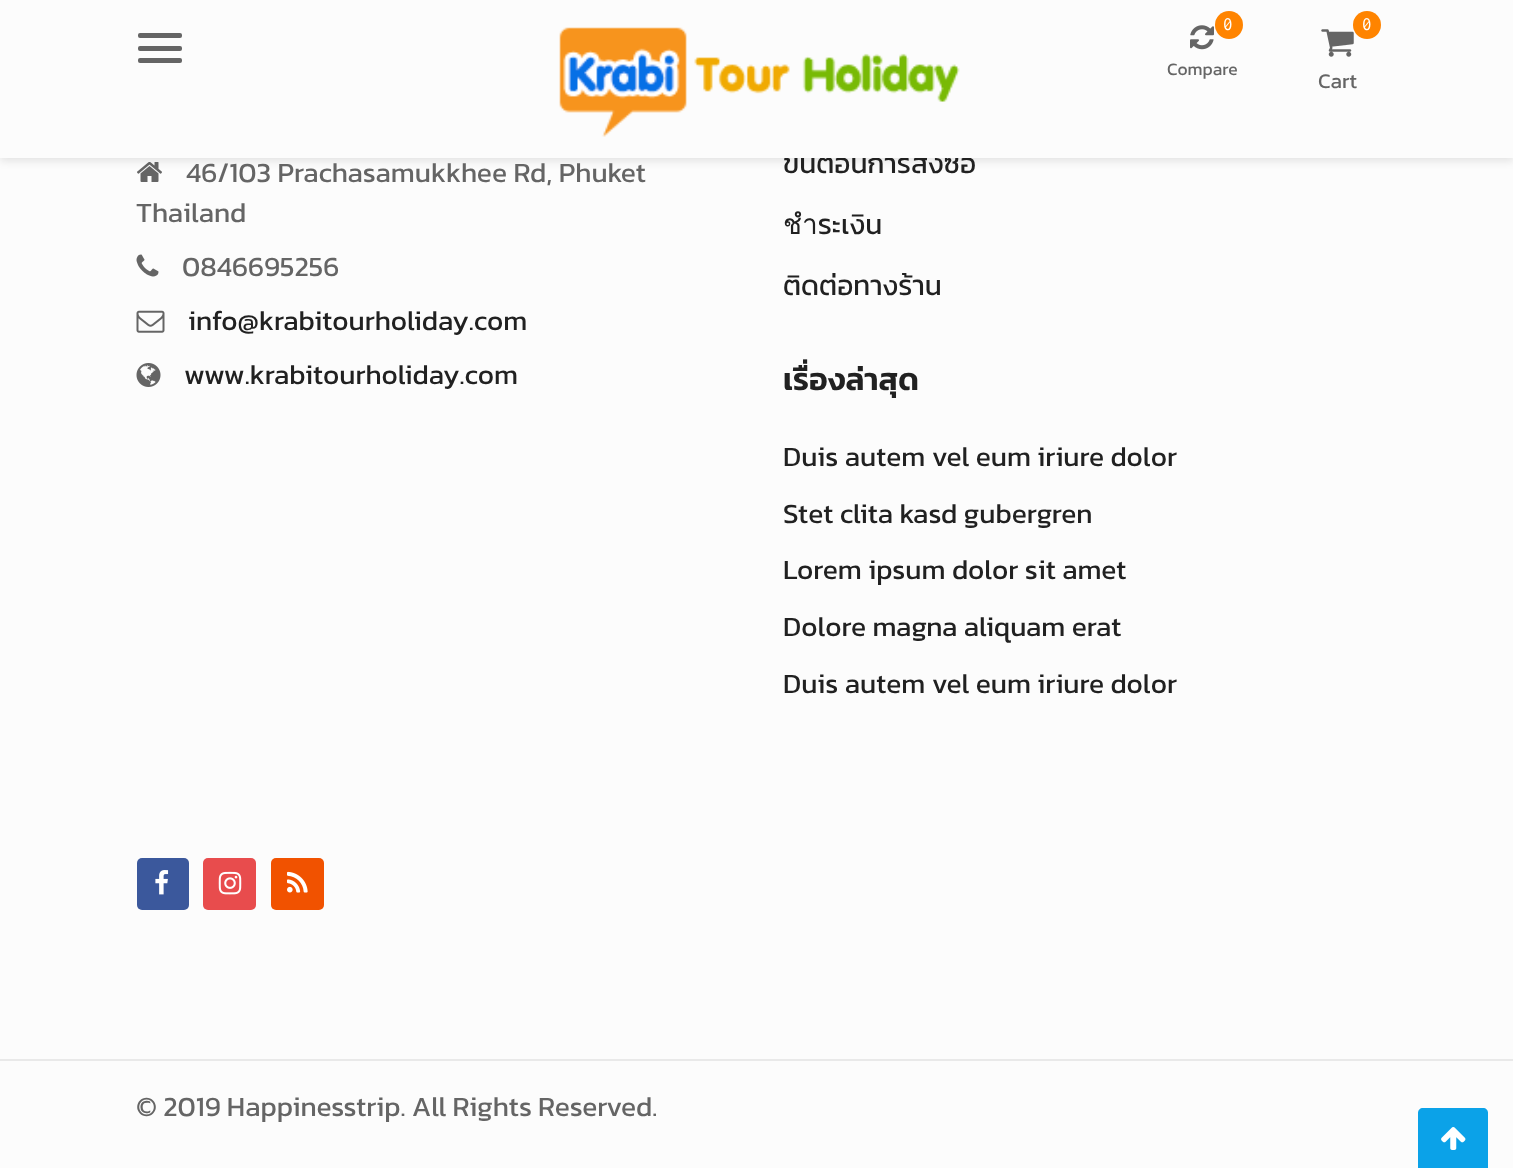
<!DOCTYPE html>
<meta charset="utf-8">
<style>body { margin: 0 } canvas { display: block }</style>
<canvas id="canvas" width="1513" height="1168"></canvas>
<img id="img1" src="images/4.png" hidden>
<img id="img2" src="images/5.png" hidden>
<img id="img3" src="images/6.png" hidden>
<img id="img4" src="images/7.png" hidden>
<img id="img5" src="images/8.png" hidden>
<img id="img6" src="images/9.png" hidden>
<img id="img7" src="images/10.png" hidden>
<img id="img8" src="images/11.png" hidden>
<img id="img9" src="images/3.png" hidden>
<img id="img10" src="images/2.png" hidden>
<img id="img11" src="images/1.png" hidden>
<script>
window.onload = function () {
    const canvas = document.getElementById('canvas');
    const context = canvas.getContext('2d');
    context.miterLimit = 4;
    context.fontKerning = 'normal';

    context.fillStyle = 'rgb(252, 252, 252)';
    context.fillRect(0, 0, 1513, 1168);
    context.drawImage(document.getElementById('img1'), 137, 162, 25, 20);
    context.fillStyle = 'rgba(0, 0, 0, 0.1)';
    context.filter = 'blur(4.5px)';
    context.beginPath();
    context.rect(0, 4, 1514, 157);
    context.fill();
    context.filter = 'none';
    context.fillStyle = 'rgb(233, 233, 233)';
    context.fillRect(0, 1059, 1513, 2);
    context.drawImage(document.getElementById('img2'), 136, 254, 23, 23);
    context.drawImage(document.getElementById('img3'), 136, 310, 29, 23);
    context.drawImage(document.getElementById('img4'), 136, 363, 25, 24);
    context.fillStyle = 'rgb(59, 88, 156)';
    context.beginPath();
    context.roundRect(137, 858, 52, 52, 5);
    context.fill();
    context.drawImage(document.getElementById('img5'), 155, 870, 14, 25);
    context.fillStyle = 'rgb(232, 76, 77)';
    context.beginPath();
    context.roundRect(203, 858, 53, 52, 5);
    context.fill();
    context.drawImage(document.getElementById('img6'), 218, 871, 24, 24);
    context.fillStyle = 'rgb(241, 82, 0)';
    context.beginPath();
    context.roundRect(271, 858, 53, 52, 5);
    context.fill();
    context.drawImage(document.getElementById('img7'), 287, 871, 21, 22);
    context.fillStyle = 'rgb(11, 162, 232)';
    context.beginPath();
    context.moveTo(1423, 1108);
    context.lineTo(1483, 1108);
    context.bezierCurveTo(1486, 1108, 1488, 1110, 1488, 1113);
    context.lineTo(1488, 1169);
    context.lineTo(1418, 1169);
    context.lineTo(1418, 1113);
    context.bezierCurveTo(1418, 1110, 1420, 1108, 1423, 1108);
    context.closePath();
    context.fill();
    context.drawImage(document.getElementById('img8'), 1441, 1127, 25, 23);
    context.font = '28px Kanit';
    context.fillStyle = 'rgb(101, 101, 101)';
    context.fillText('46/103 Prachasamukkhee Rd, Phuket', 186, 182);
    context.fillText('Thailand', 136, 222);
    context.fillText('0846695256', 182, 276);
    context.fillStyle = 'rgb(33, 33, 33)';
    context.fillText('info@krabitourholiday.com', 188, 330);
    context.fillText('www.krabitourholiday.com', 184, 384);
    context.fillText('ขั้นตอนการสั่งซื้อ', 783, 173);
    context.fillStyle = 'rgb(252, 252, 252)';
    context.fillRect(0, 0, 1513, 158);
    context.drawImage(document.getElementById('img9'), 1321, 29, 33, 28);
    context.fillStyle = 'rgb(255, 132, 0)';
    context.beginPath();
    context.arc(1367, 25, 14, 0, 2 * Math.PI);
    context.fill();
    context.font = '19px Inconsolata';
    context.fillStyle = 'rgb(255, 255, 255)';
    context.fillText('0', 1362, 30);
    context.font = '21px Kanit';
    context.fillStyle = 'rgb(101, 101, 101)';
    context.fillText('Cart', 1318, 88);
    context.fillStyle = 'rgb(255, 132, 0)';
    context.beginPath();
    context.arc(1229, 25, 14, 0, 2 * Math.PI);
    context.fill();
    context.font = '19px Inconsolata';
    context.fillStyle = 'rgb(255, 255, 255)';
    context.fillText('0', 1223, 30);
    context.font = '17.5px Kanit';
    context.fillStyle = 'rgb(101, 101, 101)';
    context.fillText('Compare', 1167, 75);
    context.drawImage(document.getElementById('img10'), 1190, 25, 24, 25);
    context.drawImage(document.getElementById('img11'), 559, 27, 401, 110);
    context.beginPath();
    context.roundRect(138, 58, 44, 5, 2);
    context.fill();
    context.beginPath();
    context.roundRect(138, 46, 44, 5, 2);
    context.fill();
    context.beginPath();
    context.roundRect(138, 33, 44, 5, 2);
    context.fill();
    context.font = '28px Kanit';
    context.fillStyle = 'rgb(33, 33, 33)';
    context.fillText('ชำระเงิน', 783, 234);
    context.fillText('ติดต่อทางร้าน', 783, 295);
    context.font = '600 31.5px Kanit';
    context.fillText('เรื่องล่าสุด', 783, 390);
    context.font = '28px Kanit';
    context.fillText('Duis autem vel eum iriure dolor', 783, 466);
    context.fillText('Stet clita kasd gubergren', 783, 523);
    context.fillText('Lorem ipsum dolor sit amet', 783, 579);
    context.fillText('Dolore magna aliquam erat', 783, 636);
    context.fillText('Duis autem vel eum iriure dolor', 783, 693);
    context.wordSpacing = '-0.25px';
    context.fillStyle = 'rgb(101, 101, 101)';
    context.fillText('© 2019 Happinesstrip. All Rights Reserved.', 136, 1116);
};
</script>
